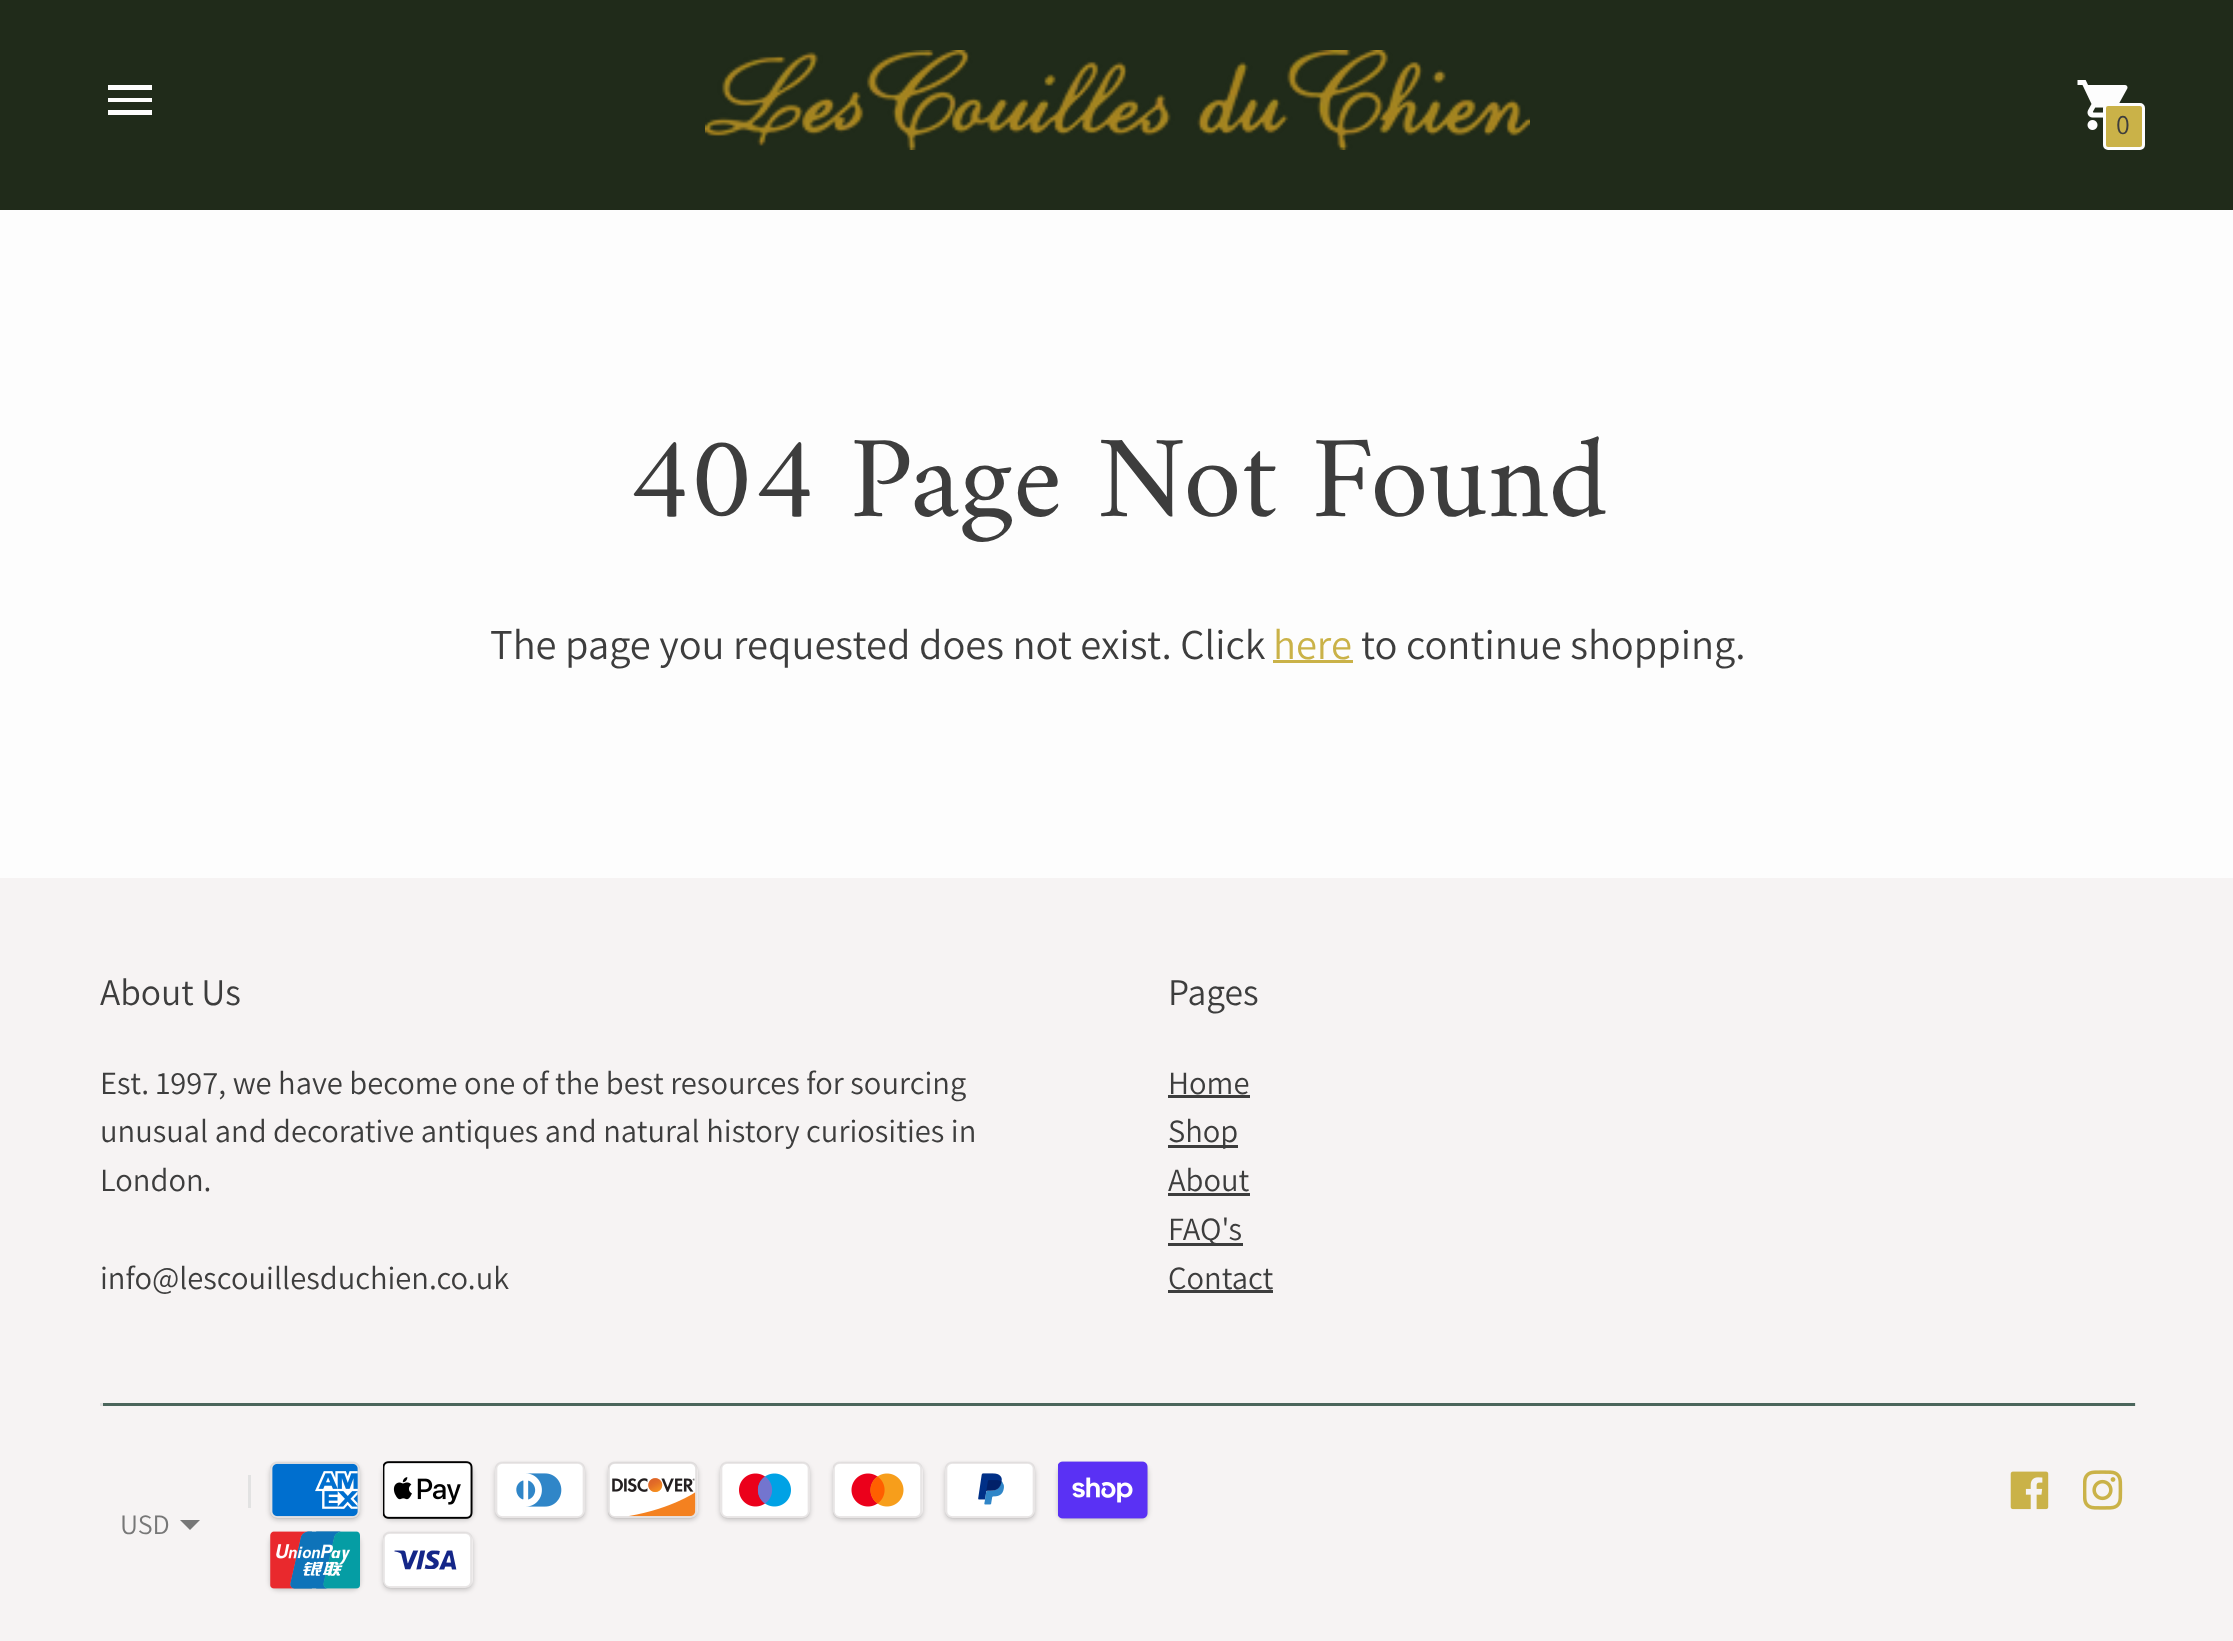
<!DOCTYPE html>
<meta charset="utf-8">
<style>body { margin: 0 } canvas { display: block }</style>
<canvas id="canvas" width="2233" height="1641"></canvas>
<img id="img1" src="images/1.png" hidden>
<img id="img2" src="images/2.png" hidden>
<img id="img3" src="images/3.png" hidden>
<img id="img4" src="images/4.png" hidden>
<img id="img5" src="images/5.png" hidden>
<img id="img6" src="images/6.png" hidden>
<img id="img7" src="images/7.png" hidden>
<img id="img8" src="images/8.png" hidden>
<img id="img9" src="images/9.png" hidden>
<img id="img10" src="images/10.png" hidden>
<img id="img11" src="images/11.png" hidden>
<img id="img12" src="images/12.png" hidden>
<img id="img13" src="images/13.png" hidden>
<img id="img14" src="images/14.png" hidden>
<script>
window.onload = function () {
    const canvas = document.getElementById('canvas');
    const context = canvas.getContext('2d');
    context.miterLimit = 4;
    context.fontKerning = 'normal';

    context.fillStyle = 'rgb(253, 253, 253)';
    context.fillRect(0, 0, 2233, 1641);
    context.fillStyle = 'rgb(32, 43, 26)';
    context.fillRect(0, 0, 2233, 210);
    context.fillStyle = 'rgb(253, 253, 253)';
    context.beginPath();
    context.moveTo(108, 115);
    context.lineTo(152, 115);
    context.lineTo(152, 110);
    context.lineTo(108, 110);
    context.closePath();
    context.moveTo(108, 102);
    context.lineTo(152, 102);
    context.lineTo(152, 98);
    context.lineTo(108, 98);
    context.closePath();
    context.moveTo(108, 85);
    context.lineTo(108, 90);
    context.lineTo(152, 90);
    context.lineTo(152, 85);
    context.closePath();
    context.fill();
    context.drawImage(document.getElementById('img1'), 705, 50, 825, 100);
    context.drawImage(document.getElementById('img2'), 2077, 80, 51, 50);
    context.fillStyle = 'rgb(202, 178, 72)';
    context.beginPath();
    context.roundRect(2104.5, 104.5, 39, 44, 3.5);
    context.fill();
    context.strokeStyle = 'rgb(253, 253, 253)';
    context.lineWidth = 3;
    context.stroke();
    context.fillRect(1273, 660, 80, 3);
    context.fillStyle = 'rgb(246, 243, 243)';
    context.fillRect(0, 878, 2233, 763);
    context.fillStyle = 'rgb(61, 61, 61)';
    context.fillRect(1168, 1095, 82, 3);
    context.fillRect(1168, 1145, 70, 3);
    context.fillRect(1168, 1193, 82, 3);
    context.fillRect(1168, 1243, 75, 3);
    context.fillRect(1168, 1290, 105, 3);
    context.fillStyle = 'rgb(226, 226, 226)';
    context.fillRect(2133, 1403, 3, 3);
    context.fillStyle = 'rgb(75, 101, 91)';
    context.fillRect(100, 1403, 2035, 3);
    context.fillStyle = 'rgb(226, 226, 226)';
    context.fillRect(100, 1403, 3, 3);
    context.drawImage(document.getElementById('img3'), 2010, 1471, 39, 39);
    context.drawImage(document.getElementById('img4'), 2083, 1470, 40, 40);
    context.fillStyle = 'rgb(119, 119, 119)';
    context.beginPath();
    context.moveTo(180, 1520);
    context.lineTo(200, 1520);
    context.lineTo(190, 1530);
    context.closePath();
    context.fill();
    context.fillStyle = 'rgb(226, 226, 226)';
    context.fillRect(248, 1475, 3, 33);
    context.save();
    context.beginPath();
    context.moveTo(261, 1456);
    context.lineTo(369, 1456);
    context.lineTo(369, 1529);
    context.lineTo(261, 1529);
    context.closePath();
    context.moveTo(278, 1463);
    context.lineTo(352, 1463);
    context.bezierCurveTo(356.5, 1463, 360, 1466.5, 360, 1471);
    context.lineTo(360, 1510);
    context.bezierCurveTo(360, 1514.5, 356.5, 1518, 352, 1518);
    context.lineTo(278, 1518);
    context.bezierCurveTo(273.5, 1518, 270, 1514.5, 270, 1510);
    context.lineTo(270, 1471);
    context.bezierCurveTo(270, 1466.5, 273.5, 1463, 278, 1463);
    context.closePath();
    context.clip('evenodd');
    context.fillStyle = 'rgba(0, 0, 0, 0.2)';
    context.filter = 'blur(2.5px)';
    context.beginPath();
    context.roundRect(270, 1465, 90, 55, 8);
    context.fill();
    context.filter = 'none';
    context.restore();
    context.drawImage(document.getElementById('img5'), 270, 1461, 90, 58);
    context.fillStyle = 'rgba(0, 0, 0, 0.2)';
    context.filter = 'blur(2.5px)';
    context.beginPath();
    context.roundRect(383, 1465, 90, 55, 8);
    context.fill();
    context.filter = 'none';
    context.drawImage(document.getElementById('img6'), 383, 1461, 90, 58);
    context.save();
    context.beginPath();
    context.moveTo(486, 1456);
    context.lineTo(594, 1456);
    context.lineTo(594, 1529);
    context.lineTo(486, 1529);
    context.closePath();
    context.moveTo(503, 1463);
    context.lineTo(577, 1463);
    context.bezierCurveTo(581.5, 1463, 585, 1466.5, 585, 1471);
    context.lineTo(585, 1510);
    context.bezierCurveTo(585, 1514.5, 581.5, 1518, 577, 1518);
    context.lineTo(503, 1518);
    context.bezierCurveTo(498.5, 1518, 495, 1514.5, 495, 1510);
    context.lineTo(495, 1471);
    context.bezierCurveTo(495, 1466.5, 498.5, 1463, 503, 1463);
    context.closePath();
    context.clip('evenodd');
    context.filter = 'blur(2.5px)';
    context.beginPath();
    context.roundRect(495, 1465, 90, 55, 8);
    context.fill();
    context.filter = 'none';
    context.restore();
    context.drawImage(document.getElementById('img7'), 495, 1461, 90, 58);
    context.save();
    context.beginPath();
    context.moveTo(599, 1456);
    context.lineTo(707, 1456);
    context.lineTo(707, 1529);
    context.lineTo(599, 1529);
    context.closePath();
    context.moveTo(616, 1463);
    context.lineTo(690, 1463);
    context.bezierCurveTo(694.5, 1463, 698, 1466.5, 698, 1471);
    context.lineTo(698, 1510);
    context.bezierCurveTo(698, 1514.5, 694.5, 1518, 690, 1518);
    context.lineTo(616, 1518);
    context.bezierCurveTo(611.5, 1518, 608, 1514.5, 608, 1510);
    context.lineTo(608, 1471);
    context.bezierCurveTo(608, 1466.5, 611.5, 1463, 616, 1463);
    context.closePath();
    context.clip('evenodd');
    context.filter = 'blur(2.5px)';
    context.beginPath();
    context.roundRect(608, 1465, 90, 55, 8);
    context.fill();
    context.filter = 'none';
    context.restore();
    context.drawImage(document.getElementById('img8'), 608, 1461, 90, 58);
    context.save();
    context.beginPath();
    context.moveTo(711, 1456);
    context.lineTo(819, 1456);
    context.lineTo(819, 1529);
    context.lineTo(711, 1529);
    context.closePath();
    context.moveTo(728, 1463);
    context.lineTo(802, 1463);
    context.bezierCurveTo(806.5, 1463, 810, 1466.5, 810, 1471);
    context.lineTo(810, 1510);
    context.bezierCurveTo(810, 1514.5, 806.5, 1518, 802, 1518);
    context.lineTo(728, 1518);
    context.bezierCurveTo(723.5, 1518, 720, 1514.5, 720, 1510);
    context.lineTo(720, 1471);
    context.bezierCurveTo(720, 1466.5, 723.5, 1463, 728, 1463);
    context.closePath();
    context.clip('evenodd');
    context.filter = 'blur(2.5px)';
    context.beginPath();
    context.roundRect(720, 1465, 90, 55, 8);
    context.fill();
    context.filter = 'none';
    context.restore();
    context.drawImage(document.getElementById('img9'), 720, 1461, 90, 58);
    context.save();
    context.beginPath();
    context.moveTo(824, 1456);
    context.lineTo(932, 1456);
    context.lineTo(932, 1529);
    context.lineTo(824, 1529);
    context.closePath();
    context.moveTo(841, 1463);
    context.lineTo(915, 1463);
    context.bezierCurveTo(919.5, 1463, 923, 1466.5, 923, 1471);
    context.lineTo(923, 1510);
    context.bezierCurveTo(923, 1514.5, 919.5, 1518, 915, 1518);
    context.lineTo(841, 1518);
    context.bezierCurveTo(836.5, 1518, 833, 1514.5, 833, 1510);
    context.lineTo(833, 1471);
    context.bezierCurveTo(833, 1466.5, 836.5, 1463, 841, 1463);
    context.closePath();
    context.clip('evenodd');
    context.filter = 'blur(2.5px)';
    context.beginPath();
    context.roundRect(833, 1465, 90, 55, 8);
    context.fill();
    context.filter = 'none';
    context.restore();
    context.drawImage(document.getElementById('img10'), 833, 1461, 90, 58);
    context.save();
    context.beginPath();
    context.moveTo(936, 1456);
    context.lineTo(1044, 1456);
    context.lineTo(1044, 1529);
    context.lineTo(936, 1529);
    context.closePath();
    context.moveTo(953, 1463);
    context.lineTo(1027, 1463);
    context.bezierCurveTo(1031.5, 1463, 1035, 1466.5, 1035, 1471);
    context.lineTo(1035, 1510);
    context.bezierCurveTo(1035, 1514.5, 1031.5, 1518, 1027, 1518);
    context.lineTo(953, 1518);
    context.bezierCurveTo(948.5, 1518, 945, 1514.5, 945, 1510);
    context.lineTo(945, 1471);
    context.bezierCurveTo(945, 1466.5, 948.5, 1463, 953, 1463);
    context.closePath();
    context.clip('evenodd');
    context.filter = 'blur(2.5px)';
    context.beginPath();
    context.roundRect(945, 1465, 90, 55, 8);
    context.fill();
    context.filter = 'none';
    context.restore();
    context.drawImage(document.getElementById('img11'), 945, 1461, 90, 58);
    context.filter = 'blur(2.5px)';
    context.beginPath();
    context.roundRect(1058, 1465, 90, 55, 8);
    context.fill();
    context.filter = 'none';
    context.drawImage(document.getElementById('img12'), 1058, 1461, 90, 58);
    context.filter = 'blur(2.5px)';
    context.beginPath();
    context.roundRect(270, 1535, 90, 55, 8);
    context.fill();
    context.filter = 'none';
    context.drawImage(document.getElementById('img13'), 270, 1531, 90, 58);
    context.save();
    context.beginPath();
    context.moveTo(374, 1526);
    context.lineTo(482, 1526);
    context.lineTo(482, 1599);
    context.lineTo(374, 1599);
    context.closePath();
    context.moveTo(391, 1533);
    context.lineTo(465, 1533);
    context.bezierCurveTo(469.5, 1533, 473, 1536.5, 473, 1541);
    context.lineTo(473, 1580);
    context.bezierCurveTo(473, 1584.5, 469.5, 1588, 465, 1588);
    context.lineTo(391, 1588);
    context.bezierCurveTo(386.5, 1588, 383, 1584.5, 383, 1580);
    context.lineTo(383, 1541);
    context.bezierCurveTo(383, 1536.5, 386.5, 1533, 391, 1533);
    context.closePath();
    context.clip('evenodd');
    context.filter = 'blur(2.5px)';
    context.beginPath();
    context.roundRect(383, 1535, 90, 55, 8);
    context.fill();
    context.filter = 'none';
    context.restore();
    context.drawImage(document.getElementById('img14'), 383, 1531, 90, 58);
    context.font = '28px Assistant';
    context.fillStyle = 'rgb(61, 61, 61)';
    context.fillText('0', 2116, 134);
    context.font = '117.5px Amiri';
    context.fillText('404 Page Not Found', 628, 516);
    context.font = '42.5px Assistant';
    context.fillText('The page you requested does not exist. Click', 490, 659);
    context.fillStyle = 'rgb(202, 178, 72)';
    context.fillText('here', 1273, 659);
    context.fillStyle = 'rgb(61, 61, 61)';
    context.fillText('to continue shopping.', 1361, 659);
    context.font = '37.5px Assistant';
    context.fillText('About Us', 100, 1005);
    context.font = '32.5px Assistant';
    context.fillText('Est. 1997, we have become one of the best resources for sourcing', 100, 1094);
    context.fillText('unusual and decorative antiques and natural history curiosities in', 100, 1142);
    context.fillText('London.', 100, 1191);
    context.fillText('info@lescouillesduchien.co.uk', 100, 1289);
    context.font = '37.5px Assistant';
    context.fillText('Pages', 1168, 1005);
    context.font = '32.5px Assistant';
    context.fillText('Home', 1168, 1094);
    context.fillText('Shop', 1168, 1142);
    context.fillText('About', 1168, 1191);
    context.fillText('FAQ\'s', 1168, 1240);
    context.fillText('Contact', 1168, 1289);
    context.font = '28px Assistant';
    context.fillStyle = 'rgb(119, 119, 119)';
    context.fillText('USD', 120, 1534);
};
</script>
